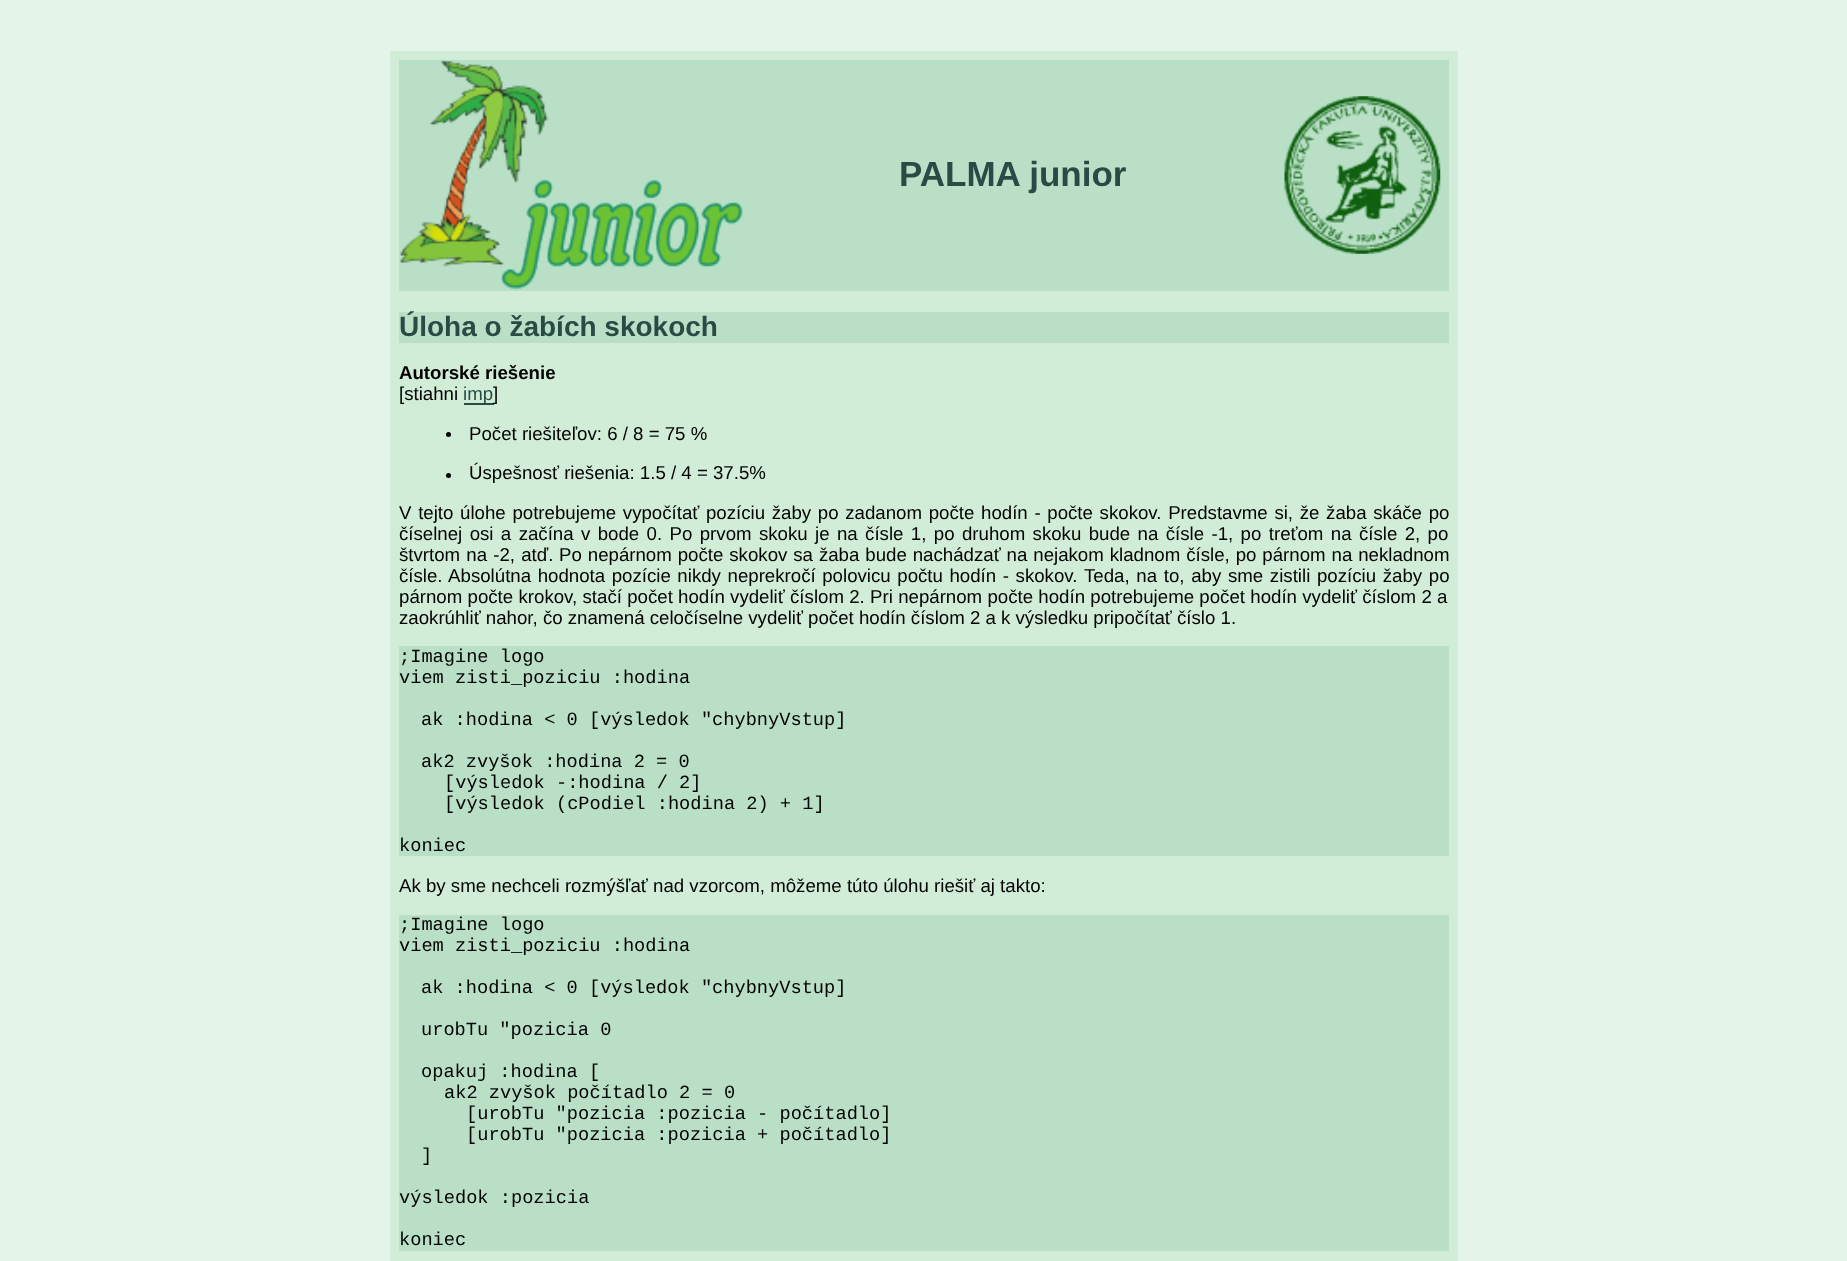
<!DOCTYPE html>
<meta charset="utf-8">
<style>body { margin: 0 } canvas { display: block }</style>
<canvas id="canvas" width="1847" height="1261"></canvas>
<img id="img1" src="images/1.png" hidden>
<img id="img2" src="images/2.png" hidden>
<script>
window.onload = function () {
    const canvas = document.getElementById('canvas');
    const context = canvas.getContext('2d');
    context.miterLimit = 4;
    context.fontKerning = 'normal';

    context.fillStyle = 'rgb(228, 244, 232)';
    context.fillRect(0, 0, 1847, 1261);
    context.fillStyle = 'rgb(209, 237, 215)';
    context.fillRect(390, 51, 1068, 1210);
    context.fillStyle = 'rgb(185, 224, 199)';
    context.fillRect(399, 60, 1050, 231);
    context.drawImage(document.getElementById('img1'), 399, 59, 344, 231);
    context.drawImage(document.getElementById('img2'), 1284, 96, 157, 158);
    context.fillRect(399, 312, 1050, 31);
    context.fillStyle = 'rgb(40, 76, 69)';
    context.fillRect(464, 403, 30, 2);
    context.fillStyle = 'rgb(0, 0, 0)';
    context.beginPath();
    context.arc(448.5, 434.5, 2.5, 0, 2 * Math.PI);
    context.fill();
    context.beginPath();
    context.arc(448.5, 475.5, 2.5, 0, 2 * Math.PI);
    context.fill();
    context.fillStyle = 'rgb(185, 224, 199)';
    context.fillRect(399, 646, 1050, 210);
    context.fillRect(399, 915, 1050, 336);
    context.font = 'bold 35px Liberation Sans';
    context.fillStyle = 'rgb(40, 76, 69)';
    context.fillText('PALMA junior', 899, 186);
    context.font = 'bold 28px Liberation Sans';
    context.fillText('Úloha o žabích skokoch', 399, 336);
    context.font = 'bold 18.67px Liberation Sans';
    context.fillStyle = 'rgb(0, 0, 0)';
    context.fillText('Autorské riešenie', 399, 379);
    context.font = '18.67px Liberation Sans';
    context.fillText('[stiahni', 399, 400);
    context.fillStyle = 'rgb(40, 76, 69)';
    context.fillText('imp', 463, 400);
    context.fillStyle = 'rgb(0, 0, 0)';
    context.fillText(']', 493, 400);
    context.fillText('Počet riešiteľov: 6 / 8 = 75 %', 469, 440);
    context.fillText('Úspešnosť riešenia: 1.5 / 4 = 37.5%', 469, 479);
    context.wordSpacing = '1.5px';
    context.fillText('V tejto úlohe potrebujeme vypočítať pozíciu žaby po zadanom počte hodín - počte skokov. Predstavme si, že žaba skáče po', 399, 519);
    context.wordSpacing = '2.2px';
    context.fillText('číselnej osi a začína v bode 0. Po prvom skoku je na čísle 1, po druhom skoku bude na čísle -1, po treťom na čísle 2, po', 399, 540);
    context.wordSpacing = '1px';
    context.fillText('štvrtom na -2, atď.', 399, 561);
    context.wordSpacing = '0.75px';
    context.fillText('Po nepárnom počte skokov sa žaba bude nachádzať na nejakom kladnom čísle, po párnom na nekladnom', 559, 561);
    context.wordSpacing = '1.4px';
    context.fillText('čísle. Absolútna hodnota pozície nikdy neprekročí polovicu počtu hodín - skokov.', 399, 582);
    context.wordSpacing = '1.5px';
    context.fillText('Teda, na to, aby sme zistili pozíciu žaby po', 1084, 582);
    context.wordSpacing = '0.1px';
    context.fillText('párnom počte krokov, stačí počet hodín vydeliť číslom 2. Pri nepárnom počte hodín potrebujeme počet hodín vydeliť číslom 2 a', 399, 603);
    context.wordSpacing = '0px';
    context.fillText('zaokrúhliť nahor, čo znamená celočíselne vydeliť počet hodín číslom 2 a k výsledku pripočítať číslo 1.', 399, 624);
    context.font = '18.67px Liberation Mono';
    context.fillText(';Imagine logo', 399, 662);
    context.fillText('viem zisti_poziciu :hodina', 399, 683);
    context.fillText('ak :hodina < 0 [výsledok "chybnyVstup]', 421, 725);
    context.fillText('ak2 zvyšok :hodina 2 = 0', 421, 767);
    context.fillText('[výsledok -:hodina / 2]', 444, 788);
    context.fillText('[výsledok (cPodiel :hodina 2) + 1]', 444, 809);
    context.fillText('koniec', 399, 851);
    context.font = '18.67px Liberation Sans';
    context.fillText('Ak by sme nechceli rozmýšľať nad vzorcom, môžeme túto úlohu riešiť aj takto:', 399, 892);
    context.font = '18.67px Liberation Mono';
    context.fillText(';Imagine logo', 399, 930);
    context.fillText('viem zisti_poziciu :hodina', 399, 951);
    context.fillText('ak :hodina < 0 [výsledok "chybnyVstup]', 421, 993);
    context.fillText('urobTu "pozicia 0', 421, 1035);
    context.fillText('opakuj :hodina [', 421, 1077);
    context.fillText('ak2 zvyšok počítadlo 2 = 0', 444, 1098);
    context.fillText('[urobTu "pozicia :pozicia - počítadlo]', 466, 1119);
    context.fillText('[urobTu "pozicia :pozicia + počítadlo]', 466, 1140);
    context.fillText(']', 421, 1161);
    context.fillText('výsledok :pozicia', 399, 1203);
    context.fillText('koniec', 399, 1245);
};
</script>
